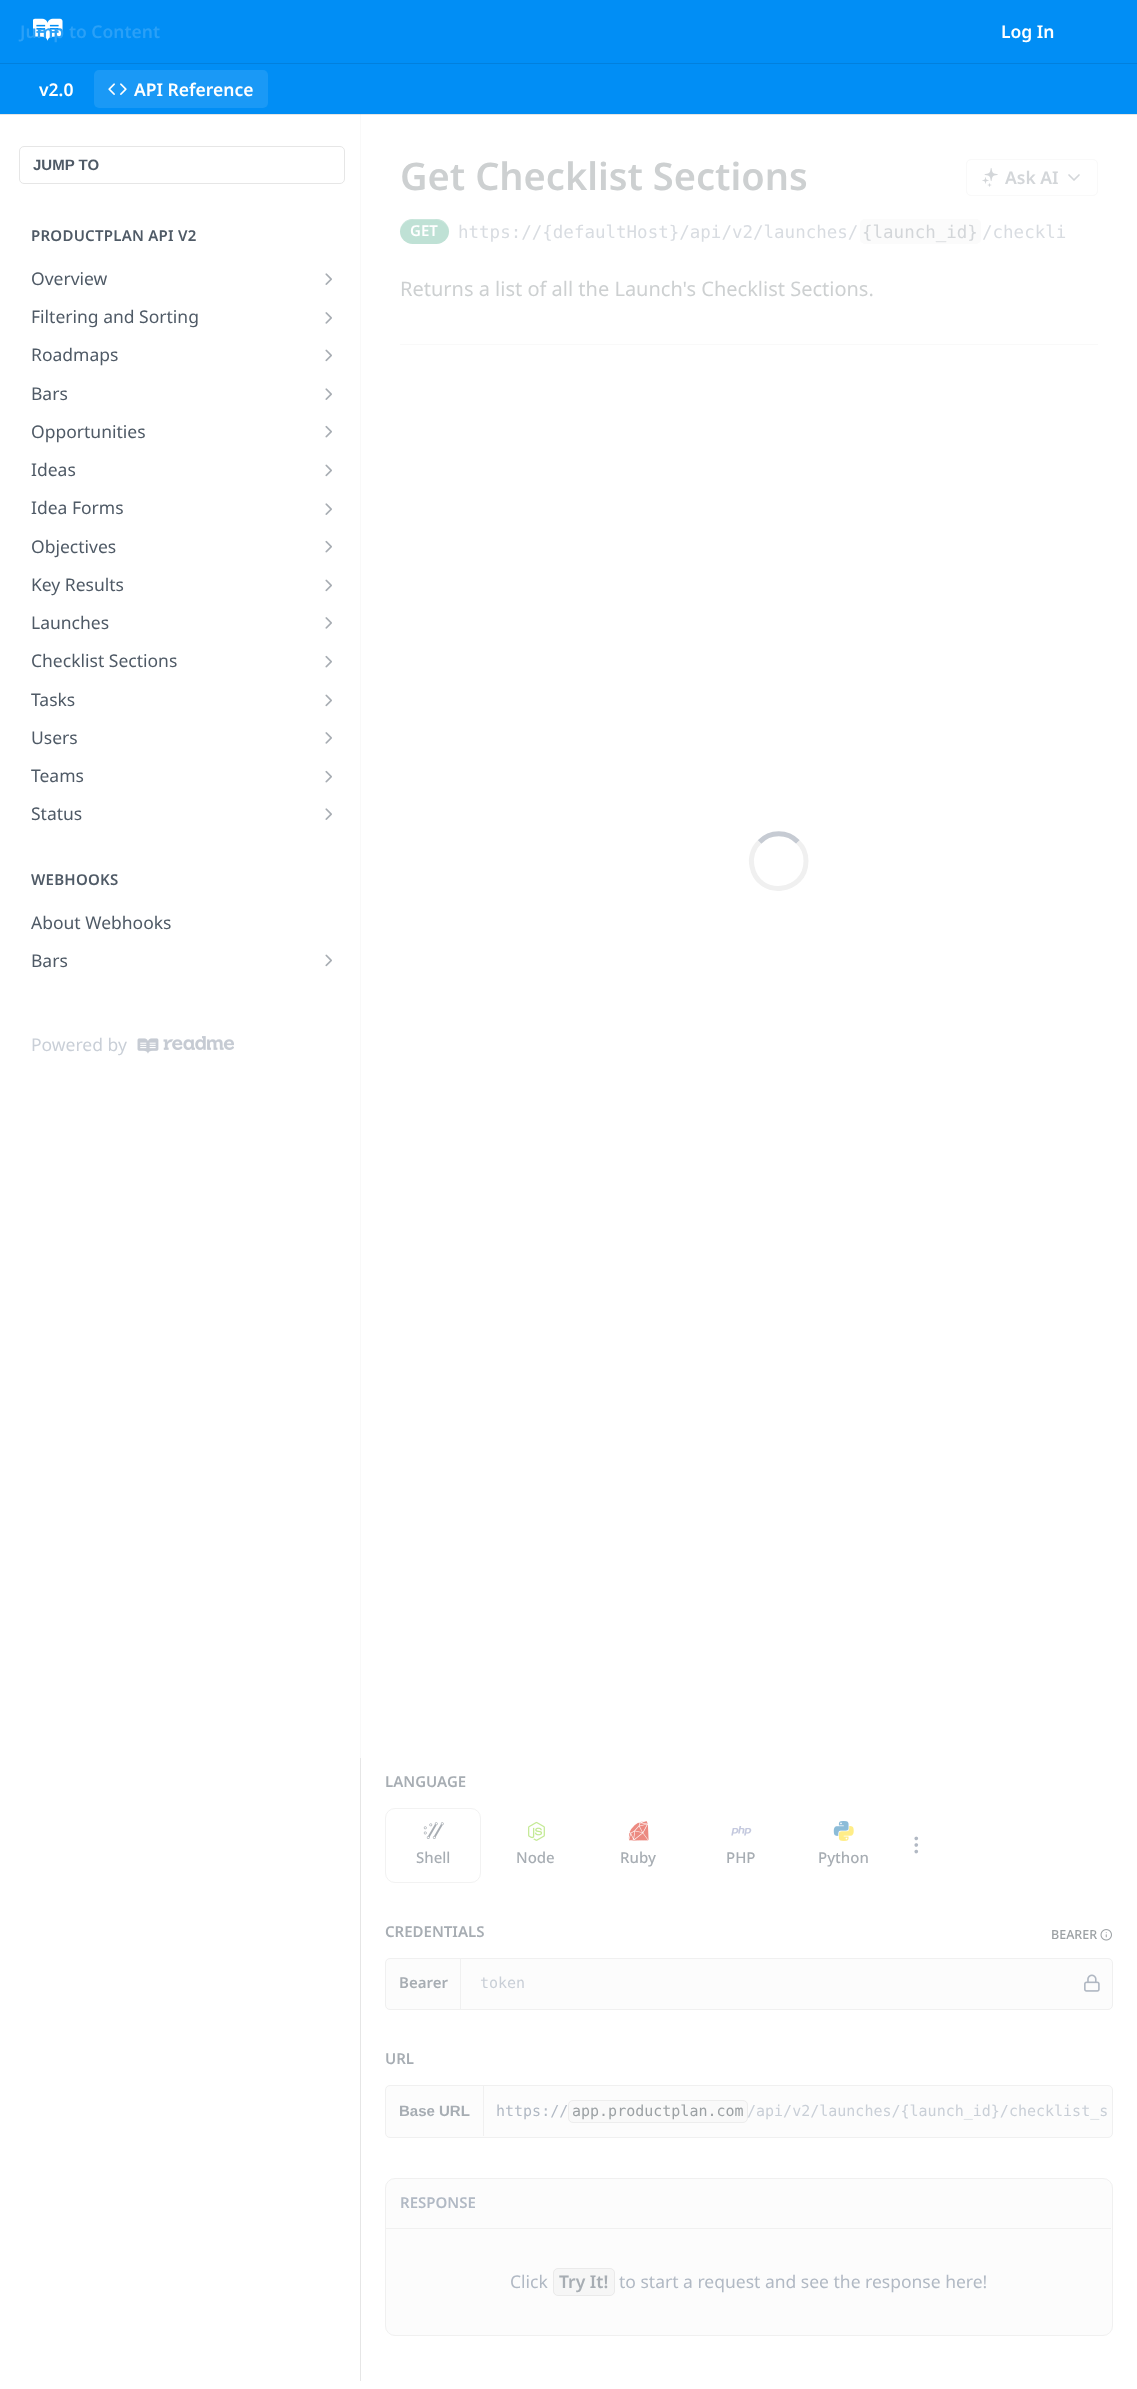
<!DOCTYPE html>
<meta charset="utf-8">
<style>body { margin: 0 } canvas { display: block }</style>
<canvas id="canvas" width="1137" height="2389"></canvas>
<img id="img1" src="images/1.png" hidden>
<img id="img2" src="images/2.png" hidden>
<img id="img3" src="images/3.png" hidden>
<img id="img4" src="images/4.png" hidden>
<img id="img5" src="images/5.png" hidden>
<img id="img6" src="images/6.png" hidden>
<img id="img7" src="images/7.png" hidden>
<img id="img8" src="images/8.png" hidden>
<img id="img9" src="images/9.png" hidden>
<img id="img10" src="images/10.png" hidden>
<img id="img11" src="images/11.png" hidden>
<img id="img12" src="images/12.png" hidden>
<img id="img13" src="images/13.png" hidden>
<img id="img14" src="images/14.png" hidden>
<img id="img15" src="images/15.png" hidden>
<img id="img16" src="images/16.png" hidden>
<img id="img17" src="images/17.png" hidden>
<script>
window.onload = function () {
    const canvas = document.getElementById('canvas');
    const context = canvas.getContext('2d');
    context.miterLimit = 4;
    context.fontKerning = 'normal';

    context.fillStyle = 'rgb(255, 255, 255)';
    context.fillRect(0, 0, 1137, 2389);
    context.fillStyle = 'rgb(249, 249, 249)';
    context.fillRect(360, 114, 1, 1644);
    context.fillStyle = 'rgba(0, 0, 0, 0.1)';
    context.beginPath();
    context.moveTo(0, 114);
    context.lineTo(0, 115);
    context.lineTo(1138, 115);
    context.lineTo(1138, 1);
    context.lineTo(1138, 114);
    context.closePath();
    context.fill();
    context.fillStyle = 'rgb(1, 142, 245)';
    context.fillRect(0, 0, 1137, 114);
    context.fillStyle = 'rgb(1, 128, 221)';
    context.fillRect(0, 63, 1137, 1);
    context.drawImage(document.getElementById('img1'), 33, 18, 30, 23);
    context.fillStyle = 'rgb(26, 153, 246)';
    context.beginPath();
    context.roundRect(94, 70, 174, 38, 5);
    context.fill();
    context.drawImage(document.getElementById('img2'), 108, 83, 19, 12);
    context.fillStyle = 'rgb(230, 230, 230)';
    context.fillRect(360, 1758, 1, 623);
    context.beginPath();
    context.roundRect(19.5, 146.5, 325, 37, 4.5);
    context.strokeStyle = 'rgb(230, 230, 230)';
    context.stroke();
    context.drawImage(document.getElementById('img3'), 325, 273, 7, 12);
    context.drawImage(document.getElementById('img4'), 325, 312, 7, 12);
    context.drawImage(document.getElementById('img5'), 325, 349, 7, 13);
    context.drawImage(document.getElementById('img3'), 325, 388, 7, 12);
    context.drawImage(document.getElementById('img6'), 325, 425, 7, 13);
    context.drawImage(document.getElementById('img5'), 325, 464, 7, 13);
    context.drawImage(document.getElementById('img3'), 325, 503, 7, 12);
    context.drawImage(document.getElementById('img6'), 325, 540, 7, 13);
    context.drawImage(document.getElementById('img5'), 325, 579, 7, 13);
    context.drawImage(document.getElementById('img4'), 325, 617, 7, 12);
    context.drawImage(document.getElementById('img6'), 325, 655, 7, 13);
    context.drawImage(document.getElementById('img5'), 325, 694, 7, 13);
    context.drawImage(document.getElementById('img4'), 325, 732, 7, 12);
    context.drawImage(document.getElementById('img6'), 325, 770, 7, 13);
    context.drawImage(document.getElementById('img3'), 325, 808, 7, 12);
    context.drawImage(document.getElementById('img5'), 325, 954, 7, 13);
    context.drawImage(document.getElementById('img7'), 137, 1036, 97, 18);
    context.fillStyle = 'rgb(249, 249, 249)';
    context.fillRect(400, 344, 698, 1);
    context.beginPath();
    context.roundRect(966.5, 159.5, 131, 36, 4.5);
    context.strokeStyle = 'rgb(249, 249, 249)';
    context.stroke();
    context.drawImage(document.getElementById('img8'), 982, 168, 16, 19);
    context.beginPath();
    context.moveTo(1069, 175);
    context.lineTo(1074, 180);
    context.lineTo(1079, 175);
    context.strokeStyle = 'rgb(211, 214, 217)';
    context.lineWidth = 1.7;
    context.lineCap = 'round';
    context.lineJoin = 'round';
    context.stroke();
    context.fillStyle = 'rgb(191, 225, 213)';
    context.beginPath();
    context.roundRect(400, 219, 49, 25, 12.5);
    context.fill();
    context.fillStyle = 'rgba(255, 255, 255, 0.2)';
    context.beginPath();
    context.moveTo(412, 220);
    context.lineTo(436, 220);
    context.bezierCurveTo(443, 220, 449, 226, 449, 232);
    context.bezierCurveTo(449, 217, 434, 219, 424, 219);
    context.bezierCurveTo(415, 219, 400, 217, 400, 232);
    context.bezierCurveTo(400, 226, 406, 220, 412, 220);
    context.closePath();
    context.fill();
    context.fillStyle = 'rgb(251, 251, 251)';
    context.beginPath();
    context.roundRect(860, 219, 121, 25, 5);
    context.fill();
    context.beginPath();
    context.moveTo(759.5, 842);
    context.bezierCurveTo(770, 831, 787.5, 831, 798, 842);
    context.strokeStyle = 'rgb(198, 203, 211)';
    context.lineWidth = 5;
    context.lineCap = 'butt';
    context.lineJoin = 'miter';
    context.stroke();
    context.beginPath();
    context.moveTo(798, 842);
    context.bezierCurveTo(803.5, 847, 806, 854, 806, 861);
    context.bezierCurveTo(806, 894, 758, 899, 752, 866.5);
    context.bezierCurveTo(750, 857.5, 753, 848, 759.5, 842);
    context.strokeStyle = 'rgb(240, 240, 240)';
    context.stroke();
    context.drawImage(document.getElementById('img9'), 914, 1836, 5, 18);
    context.beginPath();
    context.roundRect(385.5, 1808.5, 95, 74, 9.5);
    context.strokeStyle = 'rgb(242, 242, 242)';
    context.lineWidth = 1;
    context.stroke();
    context.drawImage(document.getElementById('img10'), 423, 1822, 21, 17);
    context.drawImage(document.getElementById('img11'), 528, 1821, 17, 20);
    context.drawImage(document.getElementById('img12'), 628, 1821, 21, 20);
    context.drawImage(document.getElementById('img13'), 731, 1826, 21, 10);
    context.drawImage(document.getElementById('img14'), 833, 1821, 16, 15);
    context.drawImage(document.getElementById('img15'), 838, 1826, 16, 15);
    context.drawImage(document.getElementById('img16'), 1100, 1929, 12, 12);
    context.fillStyle = 'rgb(252, 252, 252)';
    context.beginPath();
    context.roundRect(385.5, 1958.5, 727, 51, 4.5);
    context.fill();
    context.strokeStyle = 'rgb(240, 240, 240)';
    context.stroke();
    context.fillStyle = 'rgb(240, 240, 240)';
    context.fillRect(460, 1959, 1, 50);
    context.drawImage(document.getElementById('img17'), 1084, 1974, 16, 18);
    context.fillStyle = 'rgb(252, 252, 252)';
    context.beginPath();
    context.roundRect(385.5, 2085.5, 727, 52, 4.5);
    context.fill();
    context.stroke();
    context.fillStyle = 'rgb(240, 240, 240)';
    context.fillRect(483, 2086, 1, 50);
    context.fillStyle = 'rgb(249, 249, 249)';
    context.beginPath();
    context.roundRect(568.5, 2100.5, 179, 22, 4.5);
    context.fill();
    context.strokeStyle = 'rgb(237, 237, 237)';
    context.stroke();
    context.fillStyle = 'rgb(252, 252, 252)';
    context.beginPath();
    context.roundRect(385.5, 2178.5, 727, 157, 9.5);
    context.fill();
    context.strokeStyle = 'rgb(240, 240, 240)';
    context.stroke();
    context.fillStyle = 'rgb(240, 240, 240)';
    context.fillRect(386, 2228, 725, 1);
    context.fillStyle = 'rgb(246, 246, 246)';
    context.beginPath();
    context.roundRect(553, 2268, 62, 28, 5);
    context.fill();
    context.beginPath();
    context.roundRect(553.5, 2268.5, 61, 27, 4.5);
    context.strokeStyle = 'rgba(128, 128, 128, 0.1)';
    context.stroke();
    context.font = '600 17.5px Noto Sans';
    context.fillStyle = 'rgb(42, 160, 247)';
    context.fillText('Jump to Content', 20, 38);
    context.fillStyle = 'rgb(255, 255, 255)';
    context.fillText('Log In', 1001, 38);
    context.fillText('v2.0', 39, 96);
    context.fillText('API Reference', 134, 96);
    context.font = 'bold 15px Liberation Sans';
    context.fillStyle = 'rgb(79, 90, 102)';
    context.fillText('JUMP TO', 33, 170);
    context.letterSpacing = '0.25px';
    context.font = '600 15px Noto Sans';
    context.fillText('PRODUCTPLAN API V2', 31, 241);
    context.letterSpacing = '0px';
    context.font = '17.5px Noto Sans';
    context.fillText('Overview', 31, 285);
    context.fillText('Filtering and Sorting', 31, 323);
    context.fillText('Roadmaps', 31, 361);
    context.fillText('Bars', 31, 400);
    context.fillText('Opportunities', 31, 438);
    context.fillText('Ideas', 31, 476);
    context.fillText('Idea Forms', 31, 514);
    context.fillText('Objectives', 31, 553);
    context.fillText('Key Results', 31, 591);
    context.fillText('Launches', 31, 629);
    context.fillText('Checklist Sections', 31, 667);
    context.fillText('Tasks', 31, 706);
    context.fillText('Users', 31, 744);
    context.fillText('Teams', 31, 782);
    context.fillText('Status', 31, 820);
    context.letterSpacing = '0.25px';
    context.font = '600 15px Noto Sans';
    context.fillText('WEBHOOKS', 31, 885);
    context.letterSpacing = '0px';
    context.font = '17.5px Noto Sans';
    context.fillText('About Webhooks', 31, 929);
    context.fillText('Bars', 31, 967);
    context.fillStyle = 'rgb(201, 207, 215)';
    context.fillText('Powered by', 31, 1051);
    context.font = '600 38px Noto Sans';
    context.fillStyle = 'rgb(205, 208, 209)';
    context.fillText('Get Checklist Sections', 400, 190);
    context.font = '600 17.5px Noto Sans';
    context.fillStyle = 'rgb(211, 214, 217)';
    context.fillText('Ask AI', 1005, 184);
    context.font = '600 15px Noto Sans';
    context.fillStyle = 'rgb(255, 255, 255)';
    context.fillText('GET', 410, 236);
    context.font = '17.5px DejaVu Sans Mono';
    context.fillStyle = 'rgb(216, 220, 225)';
    context.fillText('https://{defaultHost}/api/v2/launches/', 458, 238);
    context.fillStyle = 'rgb(211, 214, 217)';
    context.fillText('{launch_id}', 862, 238);
    context.fillStyle = 'rgb(216, 220, 225)';
    context.fillText('/checkli', 982, 238);
    context.font = '20px Noto Sans';
    context.fillStyle = 'rgb(205, 208, 209)';
    context.fillText('Returns a list of all the Launch\'s Checklist Sections.', 400, 296);
    context.font = '600 15px Noto Sans';
    context.fillStyle = 'rgb(167, 173, 179)';
    context.fillText('LANGUAGE', 385, 1787);
    context.font = '500 15px Noto Sans';
    context.fillText('Shell', 416, 1863);
    context.fillText('Node', 516, 1863);
    context.fillText('Ruby', 620, 1863);
    context.fillText('PHP', 726, 1863);
    context.fillText('Python', 818, 1863);
    context.font = '600 15px Noto Sans';
    context.fillText('CREDENTIALS', 385, 1937);
    context.font = '500 12.5px Noto Sans';
    context.fillStyle = 'rgb(156, 161, 164)';
    context.fillText('BEARER', 1051, 1939);
    context.font = '600 15px Noto Sans';
    context.fillStyle = 'rgb(167, 173, 179)';
    context.fillText('Bearer', 399, 1988);
    context.font = '15px DejaVu Sans Mono';
    context.fillStyle = 'rgb(201, 207, 215)';
    context.fillText('token', 480, 1988);
    context.font = '600 15px Noto Sans';
    context.fillStyle = 'rgb(167, 173, 179)';
    context.fillText('URL', 385, 2064);
    context.font = 'bold 15px Liberation Sans';
    context.fillText('Base URL', 399, 2116);
    context.font = '15px DejaVu Sans Mono';
    context.fillStyle = 'rgb(177, 185, 196)';
    context.fillText('https://', 496, 2116);
    context.fillStyle = 'rgb(156, 161, 164)';
    context.fillText('app.productplan.com', 572, 2116);
    context.fillStyle = 'rgb(201, 207, 215)';
    context.fillText('/api/v2/launches/{launch_id}/checklist_s', 747, 2116);
    context.font = '600 15px Noto Sans';
    context.fillStyle = 'rgb(177, 185, 196)';
    context.fillText('RESPONSE', 400, 2208);
    context.font = '17.5px Noto Sans';
    context.fillText('Click', 510, 2288);
    context.font = '600 17.5px Noto Sans';
    context.fillStyle = 'rgb(167, 173, 179)';
    context.fillText('Try It!', 559, 2288);
    context.font = '17.5px Noto Sans';
    context.fillStyle = 'rgb(177, 185, 196)';
    context.fillText('to start a request and see the response here!', 619, 2288);
};
</script>
